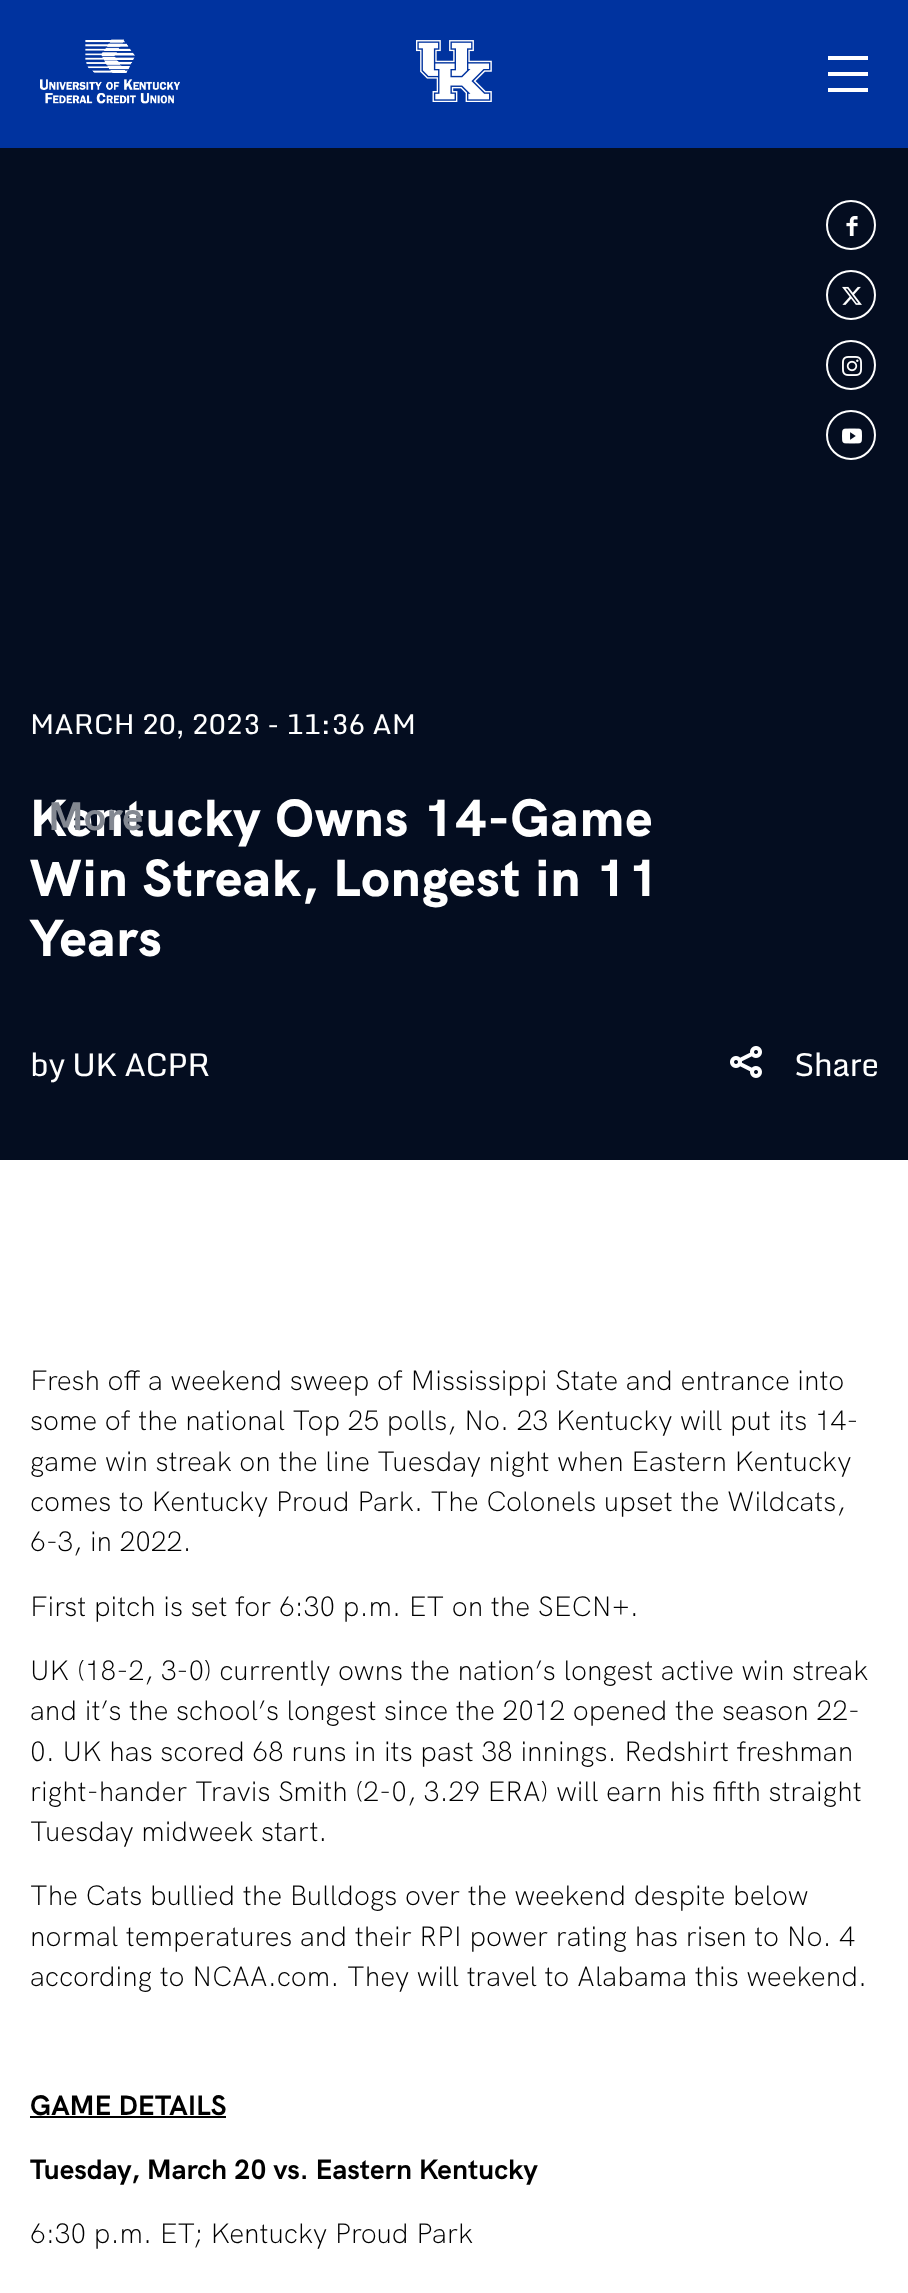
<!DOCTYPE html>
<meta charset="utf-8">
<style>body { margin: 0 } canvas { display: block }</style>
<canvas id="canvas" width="908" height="2293"></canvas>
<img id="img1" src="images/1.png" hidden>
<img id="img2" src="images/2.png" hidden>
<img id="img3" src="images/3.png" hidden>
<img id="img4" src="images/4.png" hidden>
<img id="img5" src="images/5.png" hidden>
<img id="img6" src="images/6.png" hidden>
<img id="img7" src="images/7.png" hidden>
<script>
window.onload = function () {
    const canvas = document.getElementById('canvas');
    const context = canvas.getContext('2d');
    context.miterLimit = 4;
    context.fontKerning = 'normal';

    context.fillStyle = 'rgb(255, 255, 255)';
    context.fillRect(0, 0, 908, 2293);
    context.fillStyle = 'rgb(4, 13, 32)';
    context.fillRect(0, 148, 908, 1012);
    context.beginPath();
    context.arc(851, 225, 24, 0, 2 * Math.PI);
    context.strokeStyle = 'rgb(255, 255, 255)';
    context.lineWidth = 2;
    context.stroke();
    context.drawImage(document.getElementById('img1'), 846, 216, 12, 20);
    context.beginPath();
    context.arc(851, 295, 24, 0, 2 * Math.PI);
    context.stroke();
    context.drawImage(document.getElementById('img2'), 842, 286, 20, 19);
    context.beginPath();
    context.arc(851, 365, 24, 0, 2 * Math.PI);
    context.stroke();
    context.drawImage(document.getElementById('img3'), 842, 356, 20, 20);
    context.beginPath();
    context.arc(851, 435, 24, 0, 2 * Math.PI);
    context.stroke();
    context.drawImage(document.getElementById('img4'), 842, 428, 20, 16);
    context.drawImage(document.getElementById('img5'), 730, 1046, 32, 32);
    context.fillStyle = 'rgb(0, 0, 0)';
    context.fillRect(30, 2116, 196, 2);
    context.fillStyle = 'rgb(0, 51, 159)';
    context.fillRect(0, 0, 908, 148);
    context.fillStyle = 'rgb(255, 255, 255)';
    context.fillRect(828, 72, 40, 4);
    context.fillRect(828, 56, 40, 4);
    context.fillRect(828, 88, 40, 4);
    context.drawImage(document.getElementById('img6'), 40, 39, 140, 65);
    context.drawImage(document.getElementById('img7'), 416, 40, 76, 62);
    context.font = '28px Monda';
    context.fillText('MARCH 20, 2023 - 11:36 AM', 30, 734);
    context.letterSpacing = '1.4px';
    context.font = '800 52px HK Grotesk';
    context.fillText('Kentucky Owns 14-Game', 30, 836);
    context.fillText('Win Streak, Longest in 11', 30, 896);
    context.fillText('Years', 30, 956);
    context.letterSpacing = '-0.75px';
    context.font = '32px Monda';
    context.fillText('by UK ACPR', 30, 1076);
    context.fillText('Share', 794, 1076);
    context.letterSpacing = '0px';
    context.font = '300 28px HK Grotesk';
    context.fillStyle = 'rgb(0, 0, 0)';
    context.fillText('Fresh off a weekend sweep of Mississippi State and entrance into', 30, 1390);
    context.fillText('some of the national Top 25 polls, No. 23 Kentucky will put its 14-', 30, 1430);
    context.fillText('game win streak on the line Tuesday night when Eastern Kentucky', 30, 1471);
    context.fillText('comes to Kentucky Proud Park. The Colonels upset the Wildcats,', 30, 1511);
    context.fillText('6-3, in 2022.', 30, 1551);
    context.fillText('First pitch is set for 6:30 p.m. ET on the SECN+.', 30, 1616);
    context.fillText('UK (18-2, 3-0) currently owns the nation’s longest active win streak', 30, 1680);
    context.fillText('and it’s the school’s longest since the 2012 opened the season 22-', 30, 1720);
    context.fillText('0. UK has scored 68 runs in its past 38 innings. Redshirt freshman', 30, 1761);
    context.fillText('right-hander Travis Smith (2-0, 3.29 ERA) will earn his fifth straight', 30, 1801);
    context.fillText('Tuesday midweek start.', 30, 1841);
    context.fillText('The Cats bullied the Bulldogs over the weekend despite below', 30, 1905);
    context.fillText('normal temperatures and their RPI power rating has risen to No. 4', 30, 1946);
    context.fillText('according to NCAA.com. They will travel to Alabama this weekend.', 30, 1986);
    context.font = 'bold 28px HK Grotesk';
    context.fillText('GAME DETAILS', 30, 2115);
    context.fillText('Tuesday, March 20 vs. Eastern Kentucky', 30, 2179);
    context.font = '300 28px HK Grotesk';
    context.fillText('6:30 p.m. ET; Kentucky Proud Park', 30, 2243);
    context.letterSpacing = '0.5px';
    context.font = 'bold 40px HK Grotesk';
    context.fillStyle = 'rgb(131, 136, 145)';
    context.fillText('More', 48, 830);
};
</script>
